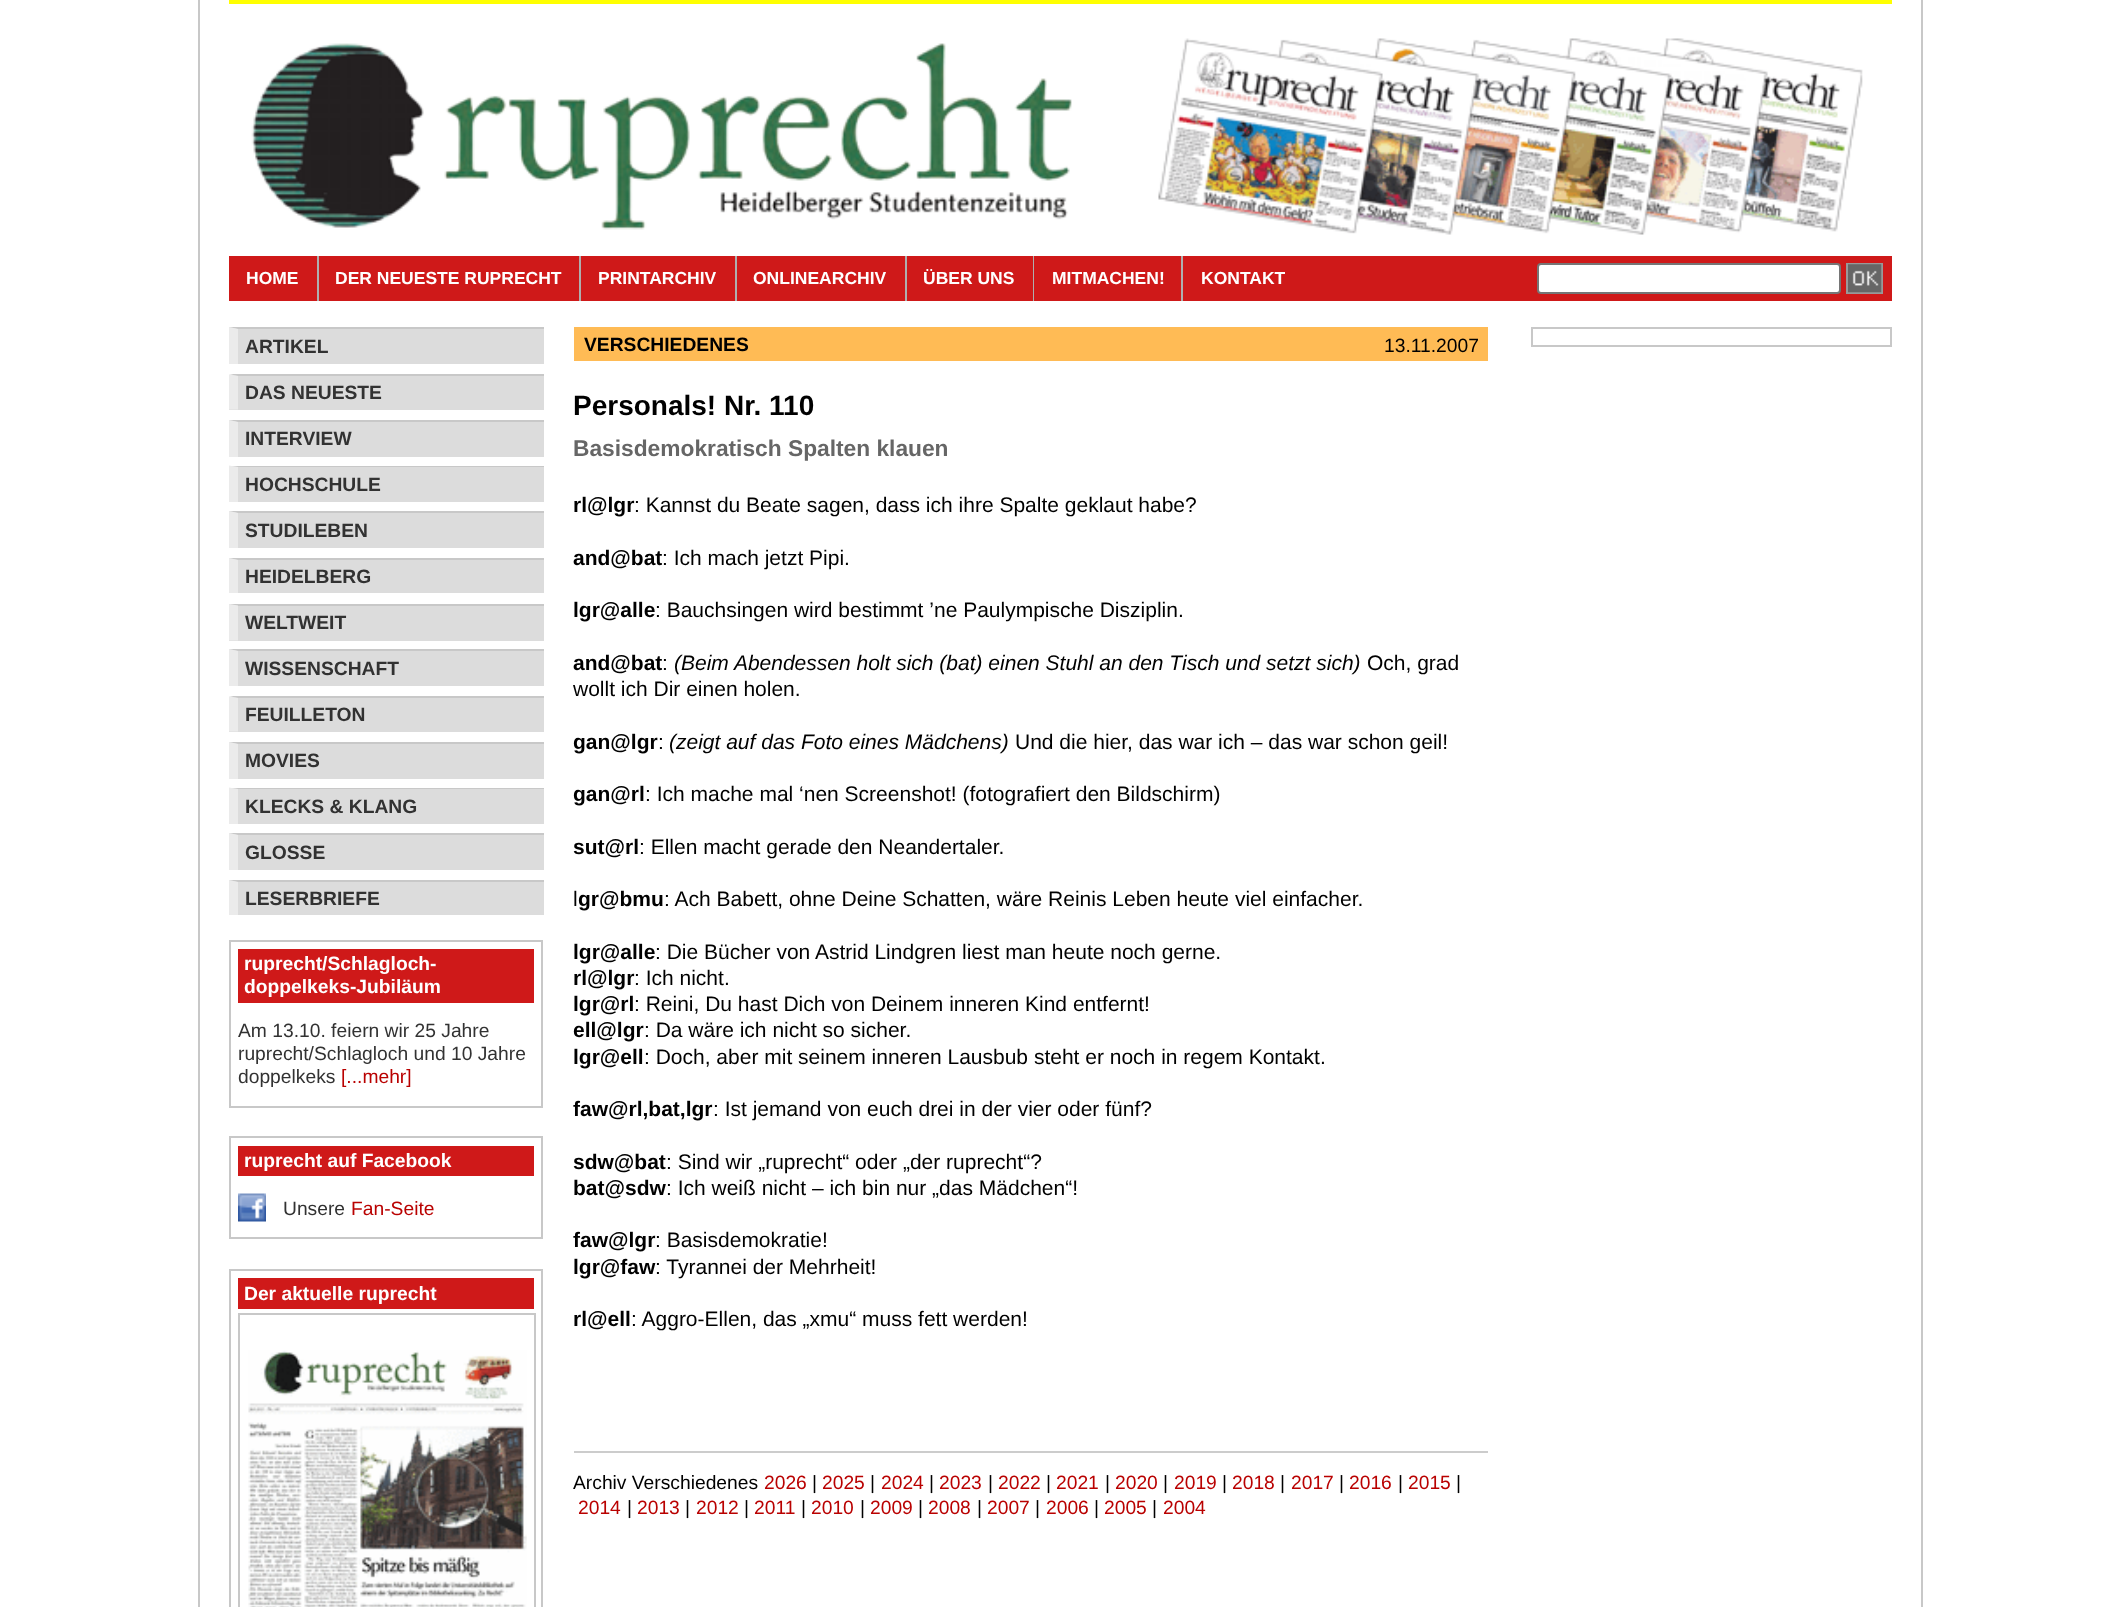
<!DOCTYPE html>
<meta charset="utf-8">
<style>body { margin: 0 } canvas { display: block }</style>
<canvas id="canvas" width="2118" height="1607"></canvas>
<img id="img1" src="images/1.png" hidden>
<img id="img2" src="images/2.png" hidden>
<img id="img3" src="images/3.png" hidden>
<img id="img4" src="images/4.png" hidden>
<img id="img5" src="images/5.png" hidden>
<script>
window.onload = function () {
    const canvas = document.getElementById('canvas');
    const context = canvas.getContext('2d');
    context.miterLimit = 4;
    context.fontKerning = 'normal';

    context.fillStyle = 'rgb(255, 255, 255)';
    context.fillRect(0, 0, 2118, 1607);
    context.strokeStyle = 'rgb(200, 200, 200)';
    context.lineWidth = 2;
    context.strokeRect(199, -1, 1723, 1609);
    context.fillStyle = 'rgb(255, 255, 0)';
    context.fillRect(229, 0, 1663, 4);
    context.drawImage(document.getElementById('img1'), 251, 43, 821, 187);
    context.drawImage(document.getElementById('img2'), 1158, 38, 705, 197);
    context.fillStyle = 'rgb(207, 25, 25)';
    context.fillRect(229, 256, 1663, 45);
    context.fillStyle = 'rgb(175, 175, 175)';
    context.fillRect(317, 256, 2, 45);
    context.fillRect(579, 256, 2, 45);
    context.fillRect(735, 256, 2, 45);
    context.fillRect(905, 256, 2, 45);
    context.fillRect(1033, 256, 1, 45);
    context.fillRect(1181, 256, 2, 45);
    context.fillStyle = 'rgb(255, 255, 255)';
    context.beginPath();
    context.roundRect(1538, 264, 302, 29, 3);
    context.fill();
    context.strokeStyle = 'rgb(118, 118, 118)';
    context.stroke();
    context.strokeStyle = 'rgb(153, 153, 153)';
    context.strokeRect(1847, 264, 35, 29);
    context.drawImage(document.getElementById('img3'), 1848, 264, 34, 29);
    context.fillStyle = 'rgb(220, 220, 220)';
    context.fillRect(229, 327, 315, 37);
    context.fillStyle = 'rgb(200, 200, 200)';
    context.beginPath();
    context.moveTo(229, 327);
    context.lineTo(544, 327);
    context.lineTo(544, 329);
    context.lineTo(238, 329);
    context.closePath();
    context.fill();
    context.fillStyle = 'rgb(235, 235, 235)';
    context.beginPath();
    context.moveTo(229, 364);
    context.lineTo(229, 327);
    context.lineTo(238, 329);
    context.lineTo(238, 364);
    context.closePath();
    context.fill();
    context.fillStyle = 'rgb(220, 220, 220)';
    context.fillRect(229, 375, 315, 35);
    context.fillStyle = 'rgb(200, 200, 200)';
    context.beginPath();
    context.moveTo(229, 374);
    context.lineTo(544, 374);
    context.lineTo(544, 376);
    context.lineTo(238, 376);
    context.closePath();
    context.fill();
    context.fillStyle = 'rgb(235, 235, 235)';
    context.beginPath();
    context.moveTo(229, 409.5);
    context.lineTo(229, 374.5);
    context.lineTo(238, 376);
    context.lineTo(238, 409.5);
    context.closePath();
    context.fill();
    context.fillStyle = 'rgb(220, 220, 220)';
    context.fillRect(229, 420, 315, 37);
    context.fillStyle = 'rgb(200, 200, 200)';
    context.beginPath();
    context.moveTo(229, 420);
    context.lineTo(544, 420);
    context.lineTo(544, 422);
    context.lineTo(238, 422);
    context.closePath();
    context.fill();
    context.fillStyle = 'rgb(235, 235, 235)';
    context.beginPath();
    context.moveTo(229, 457);
    context.lineTo(229, 420);
    context.lineTo(238, 422);
    context.lineTo(238, 457);
    context.closePath();
    context.fill();
    context.fillStyle = 'rgb(220, 220, 220)';
    context.fillRect(232, 466, 312, 36);
    context.fillStyle = 'rgb(200, 200, 200)';
    context.beginPath();
    context.moveTo(229, 466);
    context.lineTo(544, 466);
    context.lineTo(544, 467);
    context.lineTo(238, 467);
    context.closePath();
    context.fill();
    context.fillStyle = 'rgb(235, 235, 235)';
    context.beginPath();
    context.moveTo(229, 502);
    context.lineTo(229, 465.5);
    context.lineTo(238, 467);
    context.lineTo(238, 502);
    context.closePath();
    context.fill();
    context.fillStyle = 'rgb(220, 220, 220)';
    context.fillRect(229, 511, 315, 37);
    context.fillStyle = 'rgb(200, 200, 200)';
    context.beginPath();
    context.moveTo(229, 511);
    context.lineTo(544, 511);
    context.lineTo(544, 513);
    context.lineTo(238, 513);
    context.closePath();
    context.fill();
    context.fillStyle = 'rgb(235, 235, 235)';
    context.beginPath();
    context.moveTo(229, 548);
    context.lineTo(229, 511);
    context.lineTo(238, 513);
    context.lineTo(238, 548);
    context.closePath();
    context.fill();
    context.fillStyle = 'rgb(220, 220, 220)';
    context.fillRect(229, 558, 315, 35);
    context.fillStyle = 'rgb(200, 200, 200)';
    context.beginPath();
    context.moveTo(229, 558);
    context.lineTo(544, 558);
    context.lineTo(544, 560);
    context.lineTo(238, 560);
    context.closePath();
    context.fill();
    context.fillStyle = 'rgb(235, 235, 235)';
    context.beginPath();
    context.moveTo(229, 593);
    context.lineTo(229, 558);
    context.lineTo(238, 560);
    context.lineTo(238, 593);
    context.closePath();
    context.fill();
    context.fillStyle = 'rgb(220, 220, 220)';
    context.fillRect(229, 604, 315, 37);
    context.fillStyle = 'rgb(200, 200, 200)';
    context.beginPath();
    context.moveTo(229, 604);
    context.lineTo(544, 604);
    context.lineTo(544, 606);
    context.lineTo(238, 606);
    context.closePath();
    context.fill();
    context.fillStyle = 'rgb(235, 235, 235)';
    context.beginPath();
    context.moveTo(229, 640.5);
    context.lineTo(229, 604);
    context.lineTo(238, 605.5);
    context.lineTo(238, 640.5);
    context.closePath();
    context.fill();
    context.fillStyle = 'rgb(220, 220, 220)';
    context.fillRect(229, 649, 315, 37);
    context.fillStyle = 'rgb(200, 200, 200)';
    context.beginPath();
    context.moveTo(229, 649);
    context.lineTo(544, 649);
    context.lineTo(544, 651);
    context.lineTo(238, 651);
    context.closePath();
    context.fill();
    context.fillStyle = 'rgb(235, 235, 235)';
    context.beginPath();
    context.moveTo(229, 686);
    context.lineTo(229, 649);
    context.lineTo(238, 651);
    context.lineTo(238, 686);
    context.closePath();
    context.fill();
    context.fillStyle = 'rgb(220, 220, 220)';
    context.fillRect(229, 697, 315, 35);
    context.fillStyle = 'rgb(200, 200, 200)';
    context.beginPath();
    context.moveTo(229, 696);
    context.lineTo(544, 696);
    context.lineTo(544, 698);
    context.lineTo(238, 698);
    context.closePath();
    context.fill();
    context.fillStyle = 'rgb(235, 235, 235)';
    context.beginPath();
    context.moveTo(229, 731.5);
    context.lineTo(229, 696.5);
    context.lineTo(238, 698);
    context.lineTo(238, 731.5);
    context.closePath();
    context.fill();
    context.fillStyle = 'rgb(220, 220, 220)';
    context.fillRect(229, 742, 315, 37);
    context.fillStyle = 'rgb(200, 200, 200)';
    context.beginPath();
    context.moveTo(229, 742);
    context.lineTo(544, 742);
    context.lineTo(544, 744);
    context.lineTo(238, 744);
    context.closePath();
    context.fill();
    context.fillStyle = 'rgb(235, 235, 235)';
    context.beginPath();
    context.moveTo(229, 779);
    context.lineTo(229, 742);
    context.lineTo(238, 744);
    context.lineTo(238, 779);
    context.closePath();
    context.fill();
    context.fillStyle = 'rgb(220, 220, 220)';
    context.fillRect(232, 788, 312, 36);
    context.fillStyle = 'rgb(200, 200, 200)';
    context.beginPath();
    context.moveTo(229, 788);
    context.lineTo(544, 788);
    context.lineTo(544, 789);
    context.lineTo(238, 789);
    context.closePath();
    context.fill();
    context.fillStyle = 'rgb(235, 235, 235)';
    context.beginPath();
    context.moveTo(229, 824);
    context.lineTo(229, 787.5);
    context.lineTo(238, 789);
    context.lineTo(238, 824);
    context.closePath();
    context.fill();
    context.fillStyle = 'rgb(220, 220, 220)';
    context.fillRect(229, 833, 315, 37);
    context.fillStyle = 'rgb(200, 200, 200)';
    context.beginPath();
    context.moveTo(229, 833);
    context.lineTo(544, 833);
    context.lineTo(544, 835);
    context.lineTo(238, 835);
    context.closePath();
    context.fill();
    context.fillStyle = 'rgb(235, 235, 235)';
    context.beginPath();
    context.moveTo(229, 870);
    context.lineTo(229, 833);
    context.lineTo(238, 835);
    context.lineTo(238, 870);
    context.closePath();
    context.fill();
    context.fillStyle = 'rgb(220, 220, 220)';
    context.fillRect(229, 880, 315, 35);
    context.fillStyle = 'rgb(200, 200, 200)';
    context.beginPath();
    context.moveTo(229, 880);
    context.lineTo(544, 880);
    context.lineTo(544, 882);
    context.lineTo(238, 882);
    context.closePath();
    context.fill();
    context.fillStyle = 'rgb(235, 235, 235)';
    context.beginPath();
    context.moveTo(229, 915);
    context.lineTo(229, 880);
    context.lineTo(238, 882);
    context.lineTo(238, 915);
    context.closePath();
    context.fill();
    context.strokeStyle = 'rgb(200, 200, 200)';
    context.strokeRect(230, 941, 312, 166);
    context.fillStyle = 'rgb(207, 25, 25)';
    context.fillRect(238, 949, 296, 54);
    context.strokeRect(230, 1137, 312, 101);
    context.fillRect(238, 1146, 296, 30);
    context.drawImage(document.getElementById('img4'), 238, 1193, 28, 29);
    context.strokeRect(230, 1270, 312, 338);
    context.fillRect(238, 1278, 296, 31);
    context.drawImage(document.getElementById('img5'), 248, 1350, 279, 257);
    context.strokeRect(239, 1314, 296, 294);
    context.fillStyle = 'rgb(255, 187, 85)';
    context.fillRect(574, 327, 914, 34);
    context.fillStyle = 'rgb(204, 204, 204)';
    context.fillRect(574, 1451, 914, 2);
    context.strokeRect(1532, 328, 359, 18);
    context.font = 'bold 17.5px Liberation Sans';
    context.fillStyle = 'rgb(255, 255, 255)';
    context.fillText('HOME', 246, 284);
    context.fillText('DER NEUESTE RUPRECHT', 335, 284);
    context.fillText('PRINTARCHIV', 598, 284);
    context.fillText('ONLINEARCHIV', 753, 284);
    context.fillText('ÜBER UNS', 923, 284);
    context.fillText('MITMACHEN!', 1052, 284);
    context.fillText('KONTAKT', 1201, 284);
    context.font = 'bold 19.25px Liberation Sans';
    context.fillStyle = 'rgb(50, 50, 50)';
    context.fillText('ARTIKEL', 245, 353);
    context.fillText('DAS NEUESTE', 245, 399);
    context.fillText('INTERVIEW', 245, 445);
    context.fillText('HOCHSCHULE', 245, 491);
    context.fillText('STUDILEBEN', 245, 537);
    context.fillText('HEIDELBERG', 245, 583);
    context.fillText('WELTWEIT', 245, 629);
    context.fillText('WISSENSCHAFT', 245, 675);
    context.fillText('FEUILLETON', 245, 721);
    context.fillText('MOVIES', 245, 767);
    context.fillText('KLECKS & KLANG', 245, 813);
    context.fillText('GLOSSE', 245, 859);
    context.fillText('LESERBRIEFE', 245, 905);
    context.fillStyle = 'rgb(255, 255, 255)';
    context.fillText('ruprecht/Schlagloch-', 244, 970);
    context.fillText('doppelkeks-Jubiläum', 244, 993);
    context.font = '19.25px Liberation Sans';
    context.fillStyle = 'rgb(50, 50, 50)';
    context.fillText('Am 13.10. feiern wir 25 Jahre', 238, 1037);
    context.fillText('ruprecht/Schlagloch und 10 Jahre', 238, 1060);
    context.fillText('doppelkeks', 238, 1083);
    context.fillStyle = 'rgb(185, 1, 0)';
    context.fillText('[...mehr]', 341, 1083);
    context.font = 'bold 19.25px Liberation Sans';
    context.fillStyle = 'rgb(255, 255, 255)';
    context.fillText('ruprecht auf Facebook', 244, 1167);
    context.font = '19.25px Liberation Sans';
    context.fillStyle = 'rgb(50, 50, 50)';
    context.fillText('Unsere', 283, 1215);
    context.fillStyle = 'rgb(185, 1, 0)';
    context.fillText('Fan-Seite', 351, 1215);
    context.font = 'bold 19.25px Liberation Sans';
    context.fillStyle = 'rgb(255, 255, 255)';
    context.fillText('Der aktuelle ruprecht', 244, 1300);
    context.fillStyle = 'rgb(0, 0, 0)';
    context.fillText('VERSCHIEDENES', 584, 351);
    context.font = '19.25px Liberation Sans';
    context.fillText('13.11.2007', 1384, 352);
    context.font = 'bold 28px Liberation Sans';
    context.fillText('Personals! Nr. 110', 573, 415);
    context.font = 'bold 22.75px Liberation Sans';
    context.fillStyle = 'rgb(102, 102, 102)';
    context.fillText('Basisdemokratisch Spalten klauen', 573, 456);
    context.font = 'bold 21px Liberation Sans';
    context.fillStyle = 'rgb(0, 0, 0)';
    context.fillText('rl@lgr', 573, 512);
    context.font = '21px Liberation Sans';
    context.fillText(': Kannst du Beate sagen, dass ich ihre Spalte geklaut habe?', 634, 512);
    context.font = 'bold 21px Liberation Sans';
    context.fillText('and@bat', 573, 565);
    context.font = '21px Liberation Sans';
    context.fillText(': Ich mach jetzt Pipi.', 662, 565);
    context.font = 'bold 21px Liberation Sans';
    context.fillText('lgr@alle', 573, 617);
    context.font = '21px Liberation Sans';
    context.fillText(': Bauchsingen wird bestimmt ’ne Paulympische Disziplin.', 655, 617);
    context.font = 'bold 21px Liberation Sans';
    context.fillText('and@bat', 573, 670);
    context.font = '21px Liberation Sans';
    context.fillText(':', 662, 670);
    context.font = 'italic 21px Liberation Sans';
    context.fillText('(Beim Abendessen holt sich (bat) einen Stuhl an den Tisch und setzt sich)', 674, 670);
    context.font = '21px Liberation Sans';
    context.fillText('Och, grad', 1367, 670);
    context.fillText('wollt ich Dir einen holen.', 573, 696);
    context.font = 'bold 21px Liberation Sans';
    context.fillText('gan@lgr', 573, 749);
    context.font = '21px Liberation Sans';
    context.fillText(':', 658, 749);
    context.font = 'italic 21px Liberation Sans';
    context.fillText('(zeigt auf das Foto eines Mädchens)', 669, 749);
    context.font = '21px Liberation Sans';
    context.fillText('Und die hier, das war ich – das war schon geil!', 1015, 749);
    context.font = 'bold 21px Liberation Sans';
    context.fillText('gan@rl', 573, 801);
    context.font = '21px Liberation Sans';
    context.fillText(': Ich mache mal ‘nen Screenshot! (fotografiert den Bildschirm)', 645, 801);
    context.font = 'bold 21px Liberation Sans';
    context.fillText('sut@rl', 573, 854);
    context.font = '21px Liberation Sans';
    context.fillText(': Ellen macht gerade den Neandertaler.', 639, 854);
    context.fillText('l', 573, 906);
    context.font = 'bold 21px Liberation Sans';
    context.fillText('gr@bmu', 578, 906);
    context.font = '21px Liberation Sans';
    context.fillText(': Ach Babett, ohne Deine Schatten, wäre Reinis Leben heute viel einfacher.', 664, 906);
    context.font = 'bold 21px Liberation Sans';
    context.fillText('lgr@alle', 573, 959);
    context.font = '21px Liberation Sans';
    context.fillText(': Die Bücher von Astrid Lindgren liest man heute noch gerne.', 655, 959);
    context.font = 'bold 21px Liberation Sans';
    context.fillText('rl@lgr', 573, 985);
    context.font = '21px Liberation Sans';
    context.fillText(': Ich nicht.', 634, 985);
    context.font = 'bold 21px Liberation Sans';
    context.fillText('lgr@rl', 573, 1011);
    context.font = '21px Liberation Sans';
    context.fillText(': Reini, Du hast Dich von Deinem inneren Kind entfernt!', 634, 1011);
    context.font = 'bold 21px Liberation Sans';
    context.fillText('ell@lgr', 573, 1037);
    context.font = '21px Liberation Sans';
    context.fillText(': Da wäre ich nicht so sicher.', 644, 1037);
    context.font = 'bold 21px Liberation Sans';
    context.fillText('lgr@ell', 573, 1064);
    context.font = '21px Liberation Sans';
    context.fillText(': Doch, aber mit seinem inneren Lausbub steht er noch in regem Kontakt.', 644, 1064);
    context.font = 'bold 21px Liberation Sans';
    context.fillText('faw@rl,bat,lgr', 573, 1116);
    context.font = '21px Liberation Sans';
    context.fillText(': Ist jemand von euch drei in der vier oder fünf?', 713, 1116);
    context.font = 'bold 21px Liberation Sans';
    context.fillText('sdw@bat', 573, 1169);
    context.font = '21px Liberation Sans';
    context.fillText(': Sind wir „ruprecht“ oder „der ruprecht“?', 666, 1169);
    context.font = 'bold 21px Liberation Sans';
    context.fillText('bat@sdw', 573, 1195);
    context.font = '21px Liberation Sans';
    context.fillText(': Ich weiß nicht – ich bin nur „das Mädchen“!', 666, 1195);
    context.font = 'bold 21px Liberation Sans';
    context.fillText('faw@lgr', 573, 1247);
    context.font = '21px Liberation Sans';
    context.fillText(': Basisdemokratie!', 655, 1247);
    context.font = 'bold 21px Liberation Sans';
    context.fillText('lgr@faw', 573, 1274);
    context.font = '21px Liberation Sans';
    context.fillText(': Tyrannei der Mehrheit!', 655, 1274);
    context.font = 'bold 21px Liberation Sans';
    context.fillText('rl@ell', 573, 1326);
    context.font = '21px Liberation Sans';
    context.fillText(': Aggro-Ellen, das „xmu“ muss fett werden!', 631, 1326);
    context.font = '19.25px Liberation Sans';
    context.fillText('Archiv Verschiedenes', 573, 1489);
    context.fillStyle = 'rgb(185, 1, 0)';
    context.fillText('2026', 764, 1489);
    context.fillStyle = 'rgb(0, 0, 0)';
    context.fillText('|', 812, 1489);
    context.fillStyle = 'rgb(185, 1, 0)';
    context.fillText('2025', 822, 1489);
    context.fillStyle = 'rgb(0, 0, 0)';
    context.fillText('|', 870, 1489);
    context.fillStyle = 'rgb(185, 1, 0)';
    context.fillText('2024', 881, 1489);
    context.fillStyle = 'rgb(0, 0, 0)';
    context.fillText('|', 929, 1489);
    context.fillStyle = 'rgb(185, 1, 0)';
    context.fillText('2023', 939, 1489);
    context.fillStyle = 'rgb(0, 0, 0)';
    context.fillText('|', 988, 1489);
    context.fillStyle = 'rgb(185, 1, 0)';
    context.fillText('2022', 998, 1489);
    context.fillStyle = 'rgb(0, 0, 0)';
    context.fillText('|', 1046, 1489);
    context.fillStyle = 'rgb(185, 1, 0)';
    context.fillText('2021', 1056, 1489);
    context.fillStyle = 'rgb(0, 0, 0)';
    context.fillText('|', 1105, 1489);
    context.fillStyle = 'rgb(185, 1, 0)';
    context.fillText('2020', 1115, 1489);
    context.fillStyle = 'rgb(0, 0, 0)';
    context.fillText('|', 1163, 1489);
    context.fillStyle = 'rgb(185, 1, 0)';
    context.fillText('2019', 1174, 1489);
    context.fillStyle = 'rgb(0, 0, 0)';
    context.fillText('|', 1222, 1489);
    context.fillStyle = 'rgb(185, 1, 0)';
    context.fillText('2018', 1232, 1489);
    context.fillStyle = 'rgb(0, 0, 0)';
    context.fillText('|', 1280, 1489);
    context.fillStyle = 'rgb(185, 1, 0)';
    context.fillText('2017', 1291, 1489);
    context.fillStyle = 'rgb(0, 0, 0)';
    context.fillText('|', 1339, 1489);
    context.fillStyle = 'rgb(185, 1, 0)';
    context.fillText('2016', 1349, 1489);
    context.fillStyle = 'rgb(0, 0, 0)';
    context.fillText('|', 1398, 1489);
    context.fillStyle = 'rgb(185, 1, 0)';
    context.fillText('2015', 1408, 1489);
    context.fillStyle = 'rgb(0, 0, 0)';
    context.fillText('|', 1456, 1489);
    context.fillStyle = 'rgb(185, 1, 0)';
    context.fillText('2014', 578, 1514);
    context.fillStyle = 'rgb(0, 0, 0)';
    context.fillText('|', 627, 1514);
    context.fillStyle = 'rgb(185, 1, 0)';
    context.fillText('2013', 637, 1514);
    context.fillStyle = 'rgb(0, 0, 0)';
    context.fillText('|', 685, 1514);
    context.fillStyle = 'rgb(185, 1, 0)';
    context.fillText('2012', 696, 1514);
    context.fillStyle = 'rgb(0, 0, 0)';
    context.fillText('|', 744, 1514);
    context.fillStyle = 'rgb(185, 1, 0)';
    context.fillText('2011', 754, 1514);
    context.fillStyle = 'rgb(0, 0, 0)';
    context.fillText('|', 801, 1514);
    context.fillStyle = 'rgb(185, 1, 0)';
    context.fillText('2010', 811, 1514);
    context.fillStyle = 'rgb(0, 0, 0)';
    context.fillText('|', 860, 1514);
    context.fillStyle = 'rgb(185, 1, 0)';
    context.fillText('2009', 870, 1514);
    context.fillStyle = 'rgb(0, 0, 0)';
    context.fillText('|', 918, 1514);
    context.fillStyle = 'rgb(185, 1, 0)';
    context.fillText('2008', 928, 1514);
    context.fillStyle = 'rgb(0, 0, 0)';
    context.fillText('|', 977, 1514);
    context.fillStyle = 'rgb(185, 1, 0)';
    context.fillText('2007', 987, 1514);
    context.fillStyle = 'rgb(0, 0, 0)';
    context.fillText('|', 1035, 1514);
    context.fillStyle = 'rgb(185, 1, 0)';
    context.fillText('2006', 1046, 1514);
    context.fillStyle = 'rgb(0, 0, 0)';
    context.fillText('|', 1094, 1514);
    context.fillStyle = 'rgb(185, 1, 0)';
    context.fillText('2005', 1104, 1514);
    context.fillStyle = 'rgb(0, 0, 0)';
    context.fillText('|', 1152, 1514);
    context.fillStyle = 'rgb(185, 1, 0)';
    context.fillText('2004', 1163, 1514);
};
</script>
